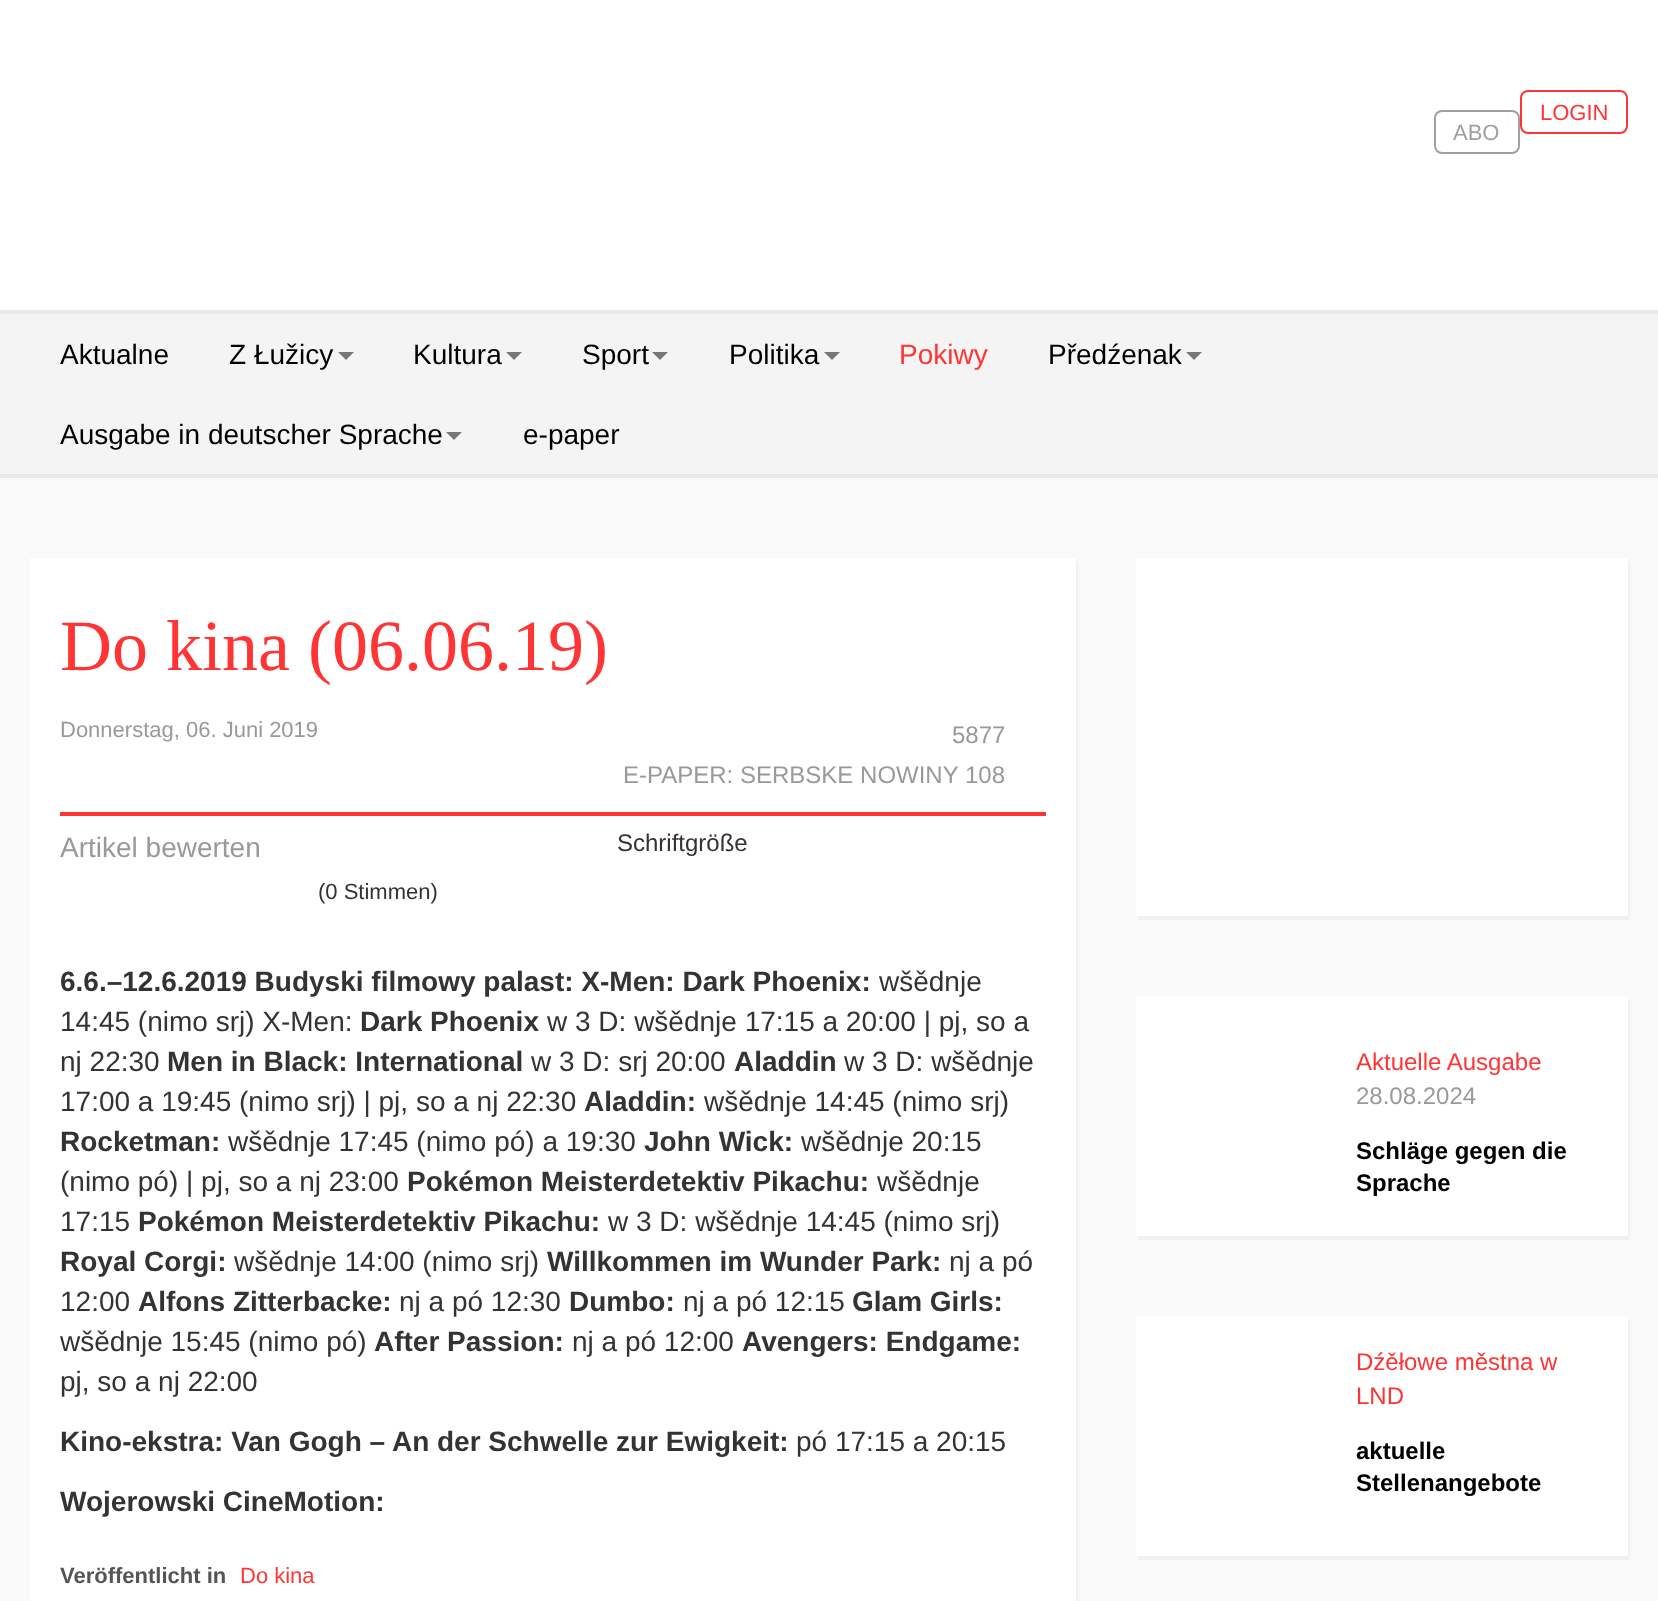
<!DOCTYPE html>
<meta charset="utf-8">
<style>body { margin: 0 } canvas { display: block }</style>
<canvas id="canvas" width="1658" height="1601"></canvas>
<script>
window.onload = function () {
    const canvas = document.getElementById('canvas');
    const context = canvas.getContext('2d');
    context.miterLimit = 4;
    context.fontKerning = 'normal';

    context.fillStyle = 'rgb(249, 249, 249)';
    context.fillRect(0, 0, 1658, 1601);
    context.fillStyle = 'rgb(255, 255, 255)';
    context.fillRect(0, 0, 1658, 310);
    context.beginPath();
    context.roundRect(1521, 91, 106, 42, 7);
    context.strokeStyle = 'rgb(255, 52, 52)';
    context.lineWidth = 2;
    context.stroke();
    context.beginPath();
    context.roundRect(1435, 111, 84, 42, 7);
    context.strokeStyle = 'rgb(160, 160, 160)';
    context.stroke();
    context.fillStyle = 'rgb(244, 244, 244)';
    context.fillRect(0, 314, 1658, 160);
    context.fillStyle = 'rgb(233, 233, 233)';
    context.fillRect(0, 310, 1658, 4);
    context.fillRect(0, 474, 1658, 4);
    context.fillStyle = 'rgb(119, 119, 119)';
    context.beginPath();
    context.moveTo(338, 352);
    context.lineTo(354, 352);
    context.lineTo(346, 360);
    context.closePath();
    context.fill();
    context.beginPath();
    context.moveTo(506, 352);
    context.lineTo(522, 352);
    context.lineTo(514, 360);
    context.closePath();
    context.fill();
    context.beginPath();
    context.moveTo(652, 352);
    context.lineTo(668, 352);
    context.lineTo(660, 360);
    context.closePath();
    context.fill();
    context.beginPath();
    context.moveTo(824, 352);
    context.lineTo(840, 352);
    context.lineTo(832, 360);
    context.closePath();
    context.fill();
    context.beginPath();
    context.moveTo(1186, 352);
    context.lineTo(1202, 352);
    context.lineTo(1194, 360);
    context.closePath();
    context.fill();
    context.beginPath();
    context.moveTo(446, 432);
    context.lineTo(462, 432);
    context.lineTo(454, 440);
    context.closePath();
    context.fill();
    context.fillStyle = 'rgb(241, 241, 241)';
    context.beginPath();
    context.moveTo(32, 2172);
    context.lineTo(32, 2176);
    context.lineTo(1078, 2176);
    context.lineTo(1078, 562);
    context.lineTo(1076, 562);
    context.lineTo(1076, 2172);
    context.closePath();
    context.fill();
    context.fillStyle = 'rgb(255, 255, 255)';
    context.fillRect(30, 558, 1046, 1043);
    context.fillStyle = 'rgb(255, 52, 52)';
    context.fillRect(60, 812, 986, 4);
    context.fillStyle = 'rgb(241, 241, 241)';
    context.beginPath();
    context.moveTo(1138, 916);
    context.lineTo(1138, 920);
    context.lineTo(1630, 920);
    context.lineTo(1630, 562);
    context.lineTo(1628, 562);
    context.lineTo(1628, 916);
    context.closePath();
    context.fill();
    context.fillStyle = 'rgb(255, 255, 255)';
    context.fillRect(1136, 558, 492, 358);
    context.fillStyle = 'rgb(241, 241, 241)';
    context.beginPath();
    context.moveTo(1138, 1236);
    context.lineTo(1138, 1240);
    context.lineTo(1630, 1240);
    context.lineTo(1630, 1000);
    context.lineTo(1628, 1000);
    context.lineTo(1628, 1236);
    context.closePath();
    context.fill();
    context.fillStyle = 'rgb(255, 255, 255)';
    context.fillRect(1136, 996, 492, 240);
    context.fillStyle = 'rgb(241, 241, 241)';
    context.beginPath();
    context.moveTo(1138, 1556);
    context.lineTo(1138, 1560);
    context.lineTo(1630, 1560);
    context.lineTo(1630, 1320);
    context.lineTo(1628, 1320);
    context.lineTo(1628, 1556);
    context.closePath();
    context.fill();
    context.fillStyle = 'rgb(255, 255, 255)';
    context.fillRect(1136, 1316, 492, 240);
    context.font = '22px Liberation Sans';
    context.fillStyle = 'rgb(255, 52, 52)';
    context.fillText('LOGIN', 1540, 120);
    context.fillStyle = 'rgb(160, 160, 160)';
    context.fillText('ABO', 1453, 140);
    context.font = '28px Liberation Sans';
    context.fillStyle = 'rgb(0, 0, 0)';
    context.fillText('Aktualne', 60, 364);
    context.fillText('Z Łužicy', 229, 364);
    context.fillText('Kultura', 413, 364);
    context.fillText('Sport', 582, 364);
    context.fillText('Politika', 729, 364);
    context.fillStyle = 'rgb(255, 52, 52)';
    context.fillText('Pokiwy', 899, 364);
    context.fillStyle = 'rgb(0, 0, 0)';
    context.fillText('Předźenak', 1048, 364);
    context.fillText('Ausgabe in deutscher Sprache', 60, 444);
    context.fillText('e-paper', 523, 444);
    context.font = '72px Liberation Serif';
    context.fillStyle = 'rgb(255, 52, 52)';
    context.fillText('Do kina (06.06.19)', 60, 670);
    context.font = '22px Liberation Sans';
    context.fillStyle = 'rgb(153, 153, 153)';
    context.fillText('Donnerstag, 06. Juni 2019', 60, 737);
    context.font = '24px Liberation Sans';
    context.fillText('5877', 952, 743);
    context.fillText('E-PAPER:', 623, 783);
    context.fillText('SERBSKE NOWINY 108', 740, 783);
    context.font = '28px Liberation Sans';
    context.fillText('Artikel bewerten', 60, 857);
    context.font = '22px Liberation Sans';
    context.fillStyle = 'rgb(51, 51, 51)';
    context.fillText('(0 Stimmen)', 318, 899);
    context.font = '24px Liberation Sans';
    context.fillText('Schriftgröße', 617, 851);
    context.font = 'bold 28px Liberation Sans';
    context.fillText('6.6.–12.6.2019 Budyski filmowy palast: X-Men: Dark Phoenix:', 60, 991);
    context.font = '28px Liberation Sans';
    context.fillText('wšědnje', 879, 991);
    context.fillText('14:45 (nimo srj) X-Men:', 60, 1031);
    context.font = 'bold 28px Liberation Sans';
    context.fillText('Dark Phoenix', 360, 1031);
    context.font = '28px Liberation Sans';
    context.fillText('w 3 D: wšědnje 17:15 a 20:00 | pj, so a', 547, 1031);
    context.fillText('nj 22:30', 60, 1071);
    context.font = 'bold 28px Liberation Sans';
    context.fillText('Men in Black: International', 167, 1071);
    context.font = '28px Liberation Sans';
    context.fillText('w 3 D: srj 20:00', 531, 1071);
    context.font = 'bold 28px Liberation Sans';
    context.fillText('Aladdin', 734, 1071);
    context.font = '28px Liberation Sans';
    context.fillText('w 3 D: wšědnje', 844, 1071);
    context.fillText('17:00 a 19:45 (nimo srj) | pj, so a nj 22:30', 60, 1111);
    context.font = 'bold 28px Liberation Sans';
    context.fillText('Aladdin:', 584, 1111);
    context.font = '28px Liberation Sans';
    context.fillText('wšědnje 14:45 (nimo srj)', 704, 1111);
    context.font = 'bold 28px Liberation Sans';
    context.fillText('Rocketman:', 60, 1151);
    context.font = '28px Liberation Sans';
    context.fillText('wšědnje 17:45 (nimo pó) a 19:30', 228, 1151);
    context.font = 'bold 28px Liberation Sans';
    context.fillText('John Wick:', 644, 1151);
    context.font = '28px Liberation Sans';
    context.fillText('wšědnje 20:15', 801, 1151);
    context.fillText('(nimo pó) | pj, so a nj 23:00', 60, 1191);
    context.font = 'bold 28px Liberation Sans';
    context.fillText('Pokémon Meisterdetektiv Pikachu:', 407, 1191);
    context.font = '28px Liberation Sans';
    context.fillText('wšědnje', 877, 1191);
    context.fillText('17:15', 60, 1231);
    context.font = 'bold 28px Liberation Sans';
    context.fillText('Pokémon Meisterdetektiv Pikachu:', 138, 1231);
    context.font = '28px Liberation Sans';
    context.fillText('w 3 D: wšědnje 14:45 (nimo srj)', 608, 1231);
    context.font = 'bold 28px Liberation Sans';
    context.fillText('Royal Corgi:', 60, 1271);
    context.font = '28px Liberation Sans';
    context.fillText('wšědnje 14:00 (nimo srj)', 234, 1271);
    context.font = 'bold 28px Liberation Sans';
    context.fillText('Willkommen im Wunder Park:', 547, 1271);
    context.font = '28px Liberation Sans';
    context.fillText('nj a pó', 949, 1271);
    context.fillText('12:00', 60, 1311);
    context.font = 'bold 28px Liberation Sans';
    context.fillText('Alfons Zitterbacke:', 138, 1311);
    context.font = '28px Liberation Sans';
    context.fillText('nj a pó 12:30', 399, 1311);
    context.font = 'bold 28px Liberation Sans';
    context.fillText('Dumbo:', 569, 1311);
    context.font = '28px Liberation Sans';
    context.fillText('nj a pó 12:15', 683, 1311);
    context.font = 'bold 28px Liberation Sans';
    context.fillText('Glam Girls:', 852, 1311);
    context.font = '28px Liberation Sans';
    context.fillText('wšědnje 15:45 (nimo pó)', 60, 1351);
    context.font = 'bold 28px Liberation Sans';
    context.fillText('After Passion:', 374, 1351);
    context.font = '28px Liberation Sans';
    context.fillText('nj a pó 12:00', 572, 1351);
    context.font = 'bold 28px Liberation Sans';
    context.fillText('Avengers: Endgame:', 742, 1351);
    context.font = '28px Liberation Sans';
    context.fillText('pj, so a nj 22:00', 60, 1391);
    context.font = 'bold 28px Liberation Sans';
    context.fillText('Kino-ekstra: Van Gogh – An der Schwelle zur Ewigkeit:', 60, 1451);
    context.font = '28px Liberation Sans';
    context.fillText('pó 17:15 a 20:15', 796, 1451);
    context.font = 'bold 28px Liberation Sans';
    context.fillText('Wojerowski CineMotion:', 60, 1511);
    context.font = 'bold 22px Liberation Sans';
    context.fillStyle = 'rgb(85, 85, 85)';
    context.fillText('Veröffentlicht in', 60, 1583);
    context.font = '22px Liberation Sans';
    context.fillStyle = 'rgb(255, 52, 52)';
    context.fillText('Do kina', 240, 1583);
    context.font = '24px Liberation Sans';
    context.fillText('Aktuelle Ausgabe', 1356, 1070);
    context.fillStyle = 'rgb(153, 153, 153)';
    context.fillText('28.08.2024', 1356, 1104);
    context.font = 'bold 24px Liberation Sans';
    context.fillStyle = 'rgb(0, 0, 0)';
    context.fillText('Schläge gegen die', 1356, 1159);
    context.fillText('Sprache', 1356, 1191);
    context.font = '24px Liberation Sans';
    context.fillStyle = 'rgb(255, 52, 52)';
    context.fillText('Dźěłowe městna w', 1356, 1370);
    context.fillText('LND', 1356, 1404);
    context.font = 'bold 24px Liberation Sans';
    context.fillStyle = 'rgb(0, 0, 0)';
    context.fillText('aktuelle', 1356, 1459);
    context.fillText('Stellenangebote', 1356, 1491);
};
</script>
